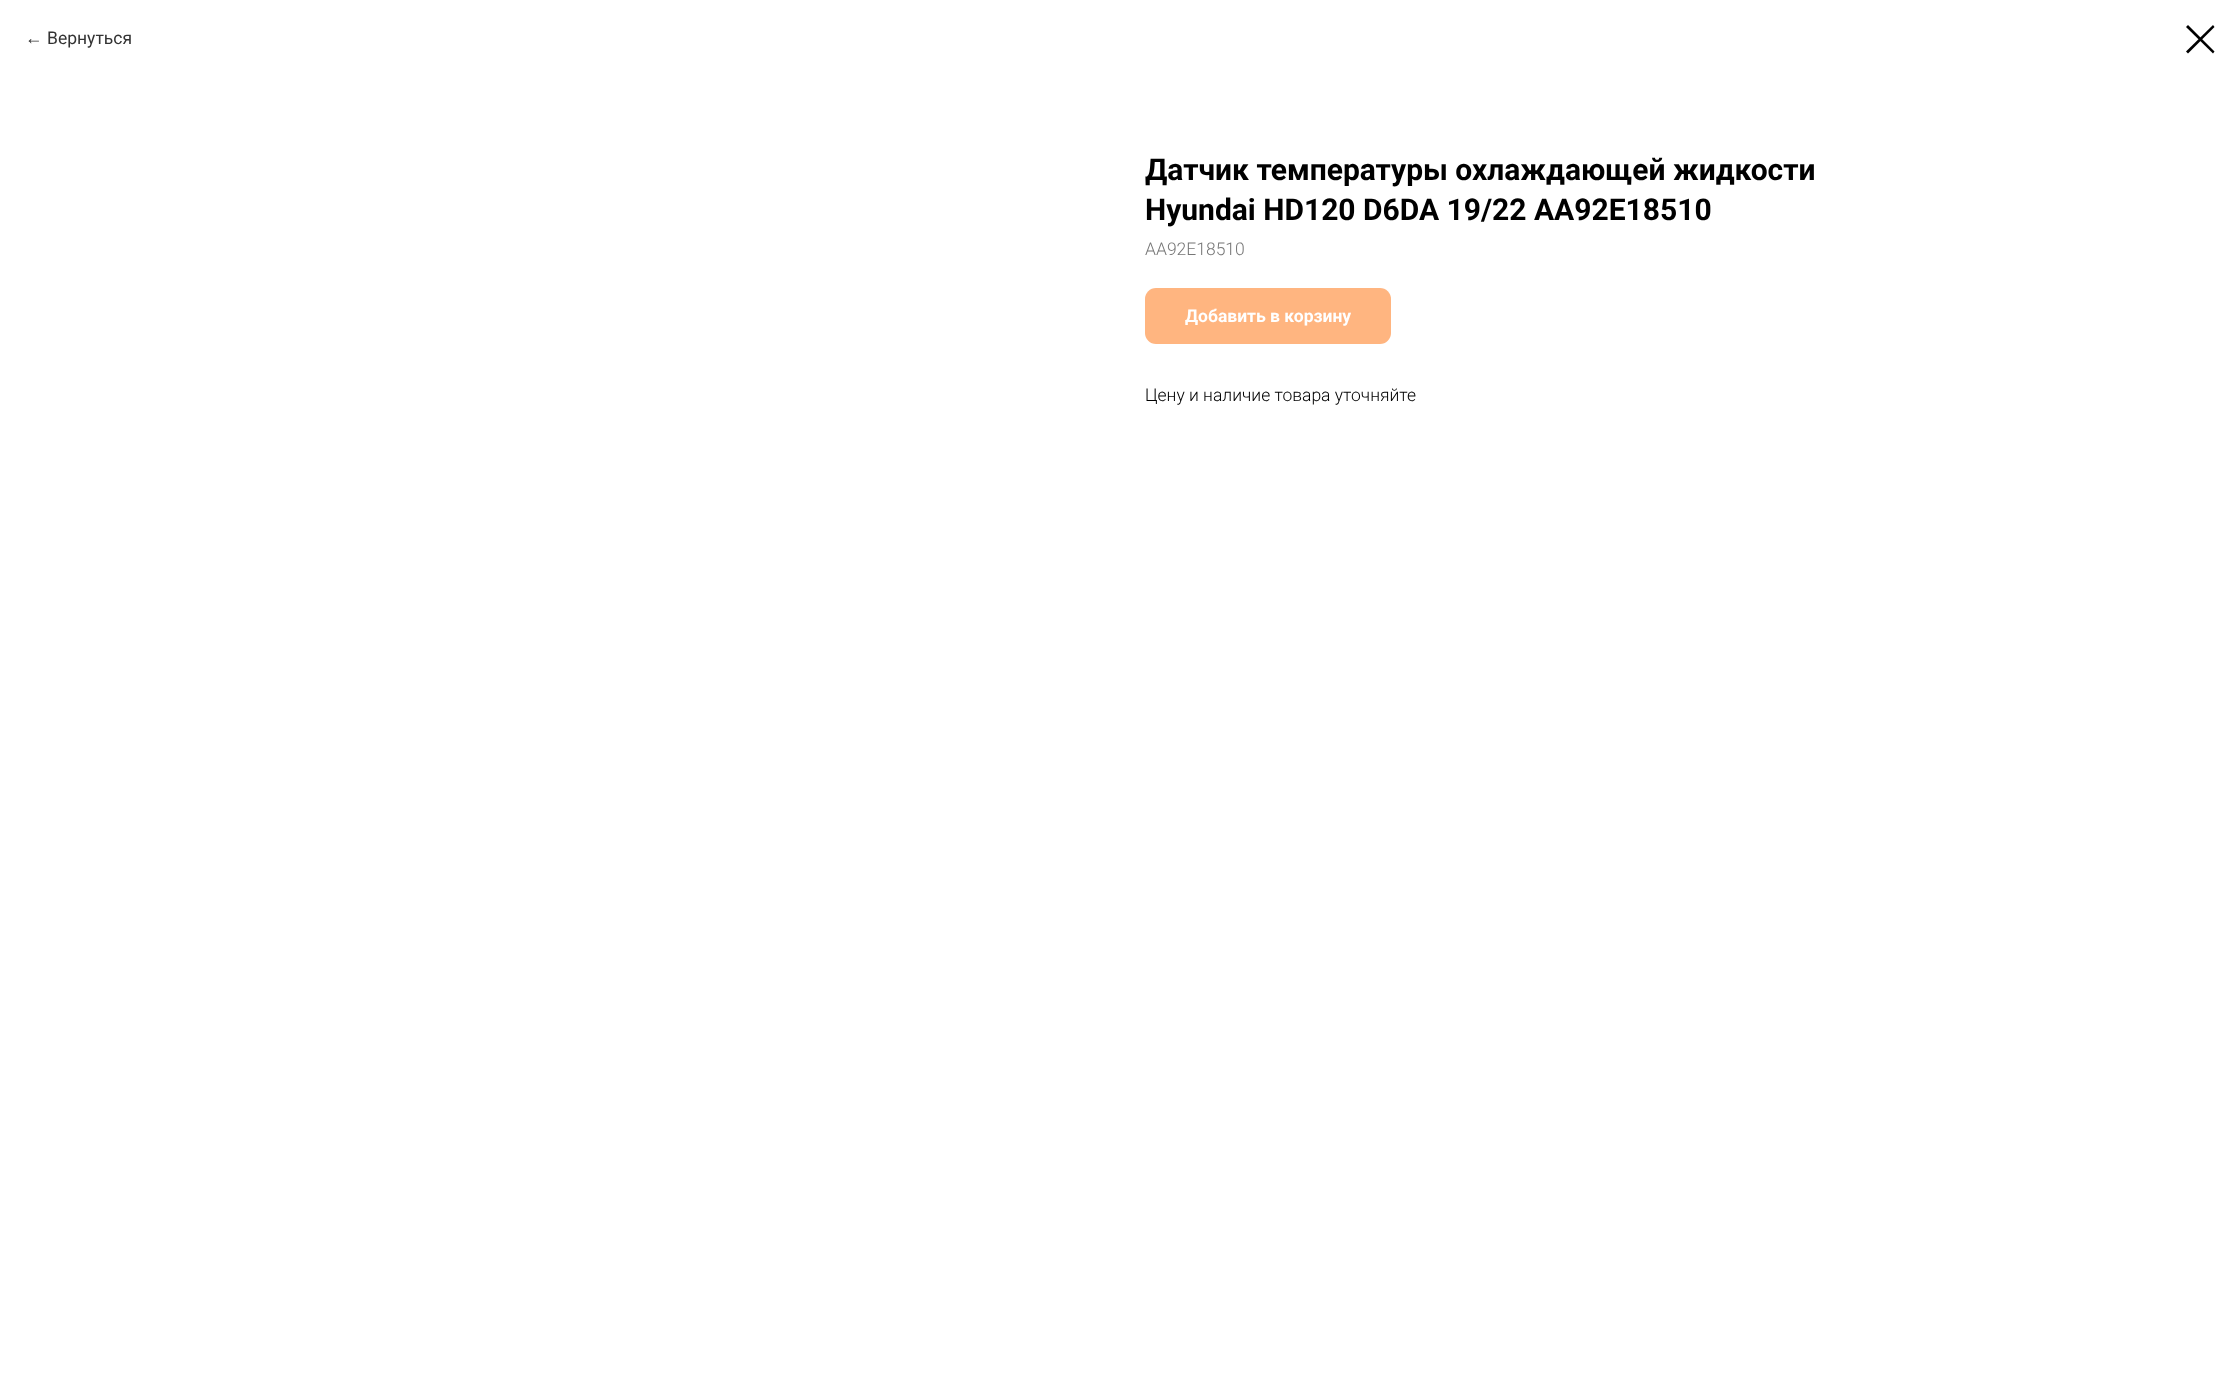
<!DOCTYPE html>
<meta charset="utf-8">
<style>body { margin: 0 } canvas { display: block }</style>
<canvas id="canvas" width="2240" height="1384"></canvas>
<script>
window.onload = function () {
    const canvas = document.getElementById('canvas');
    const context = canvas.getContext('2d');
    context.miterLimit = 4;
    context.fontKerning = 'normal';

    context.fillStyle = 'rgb(255, 255, 255)';
    context.fillRect(0, 0, 2240, 1384);
    context.fillStyle = 'rgb(0, 0, 0)';
    context.beginPath();
    context.moveTo(2186, 27);
    context.lineTo(2188, 25);
    context.lineTo(2214.5, 51.5);
    context.lineTo(2213, 53.5);
    context.closePath();
    context.fill('evenodd');
    context.beginPath();
    context.moveTo(2213, 25);
    context.lineTo(2214.5, 27);
    context.lineTo(2188, 53.5);
    context.lineTo(2186, 51.5);
    context.closePath();
    context.fill('evenodd');
    context.fillStyle = 'rgb(255, 181, 128)';
    context.beginPath();
    context.roundRect(1145, 288, 246, 56, 11);
    context.fill();
    context.font = '17.5px Liberation Sans';
    context.fillStyle = 'rgb(51, 51, 51)';
    context.fillText('←', 25, 44);
    context.font = '17.5px Roboto';
    context.fillText('Вернуться', 47, 44);
    context.font = 'bold 30px Roboto';
    context.fillStyle = 'rgb(0, 0, 0)';
    context.fillText('Датчик температуры охлаждающей жидкости', 1145, 180);
    context.fillText('Hyundai HD120 D6DA 19/22 AA92E18510', 1145, 220);
    context.font = '300 17.5px Roboto';
    context.fillStyle = 'rgb(119, 119, 119)';
    context.fillText('AA92E18510', 1145, 255);
    context.font = 'bold 17.5px Roboto';
    context.fillStyle = 'rgb(255, 255, 255)';
    context.fillText('Добавить в корзину', 1185, 322);
    context.font = '300 17.5px Roboto';
    context.fillStyle = 'rgb(0, 0, 0)';
    context.fillText('Цену и наличие товара уточняйте', 1145, 401);
};
</script>
